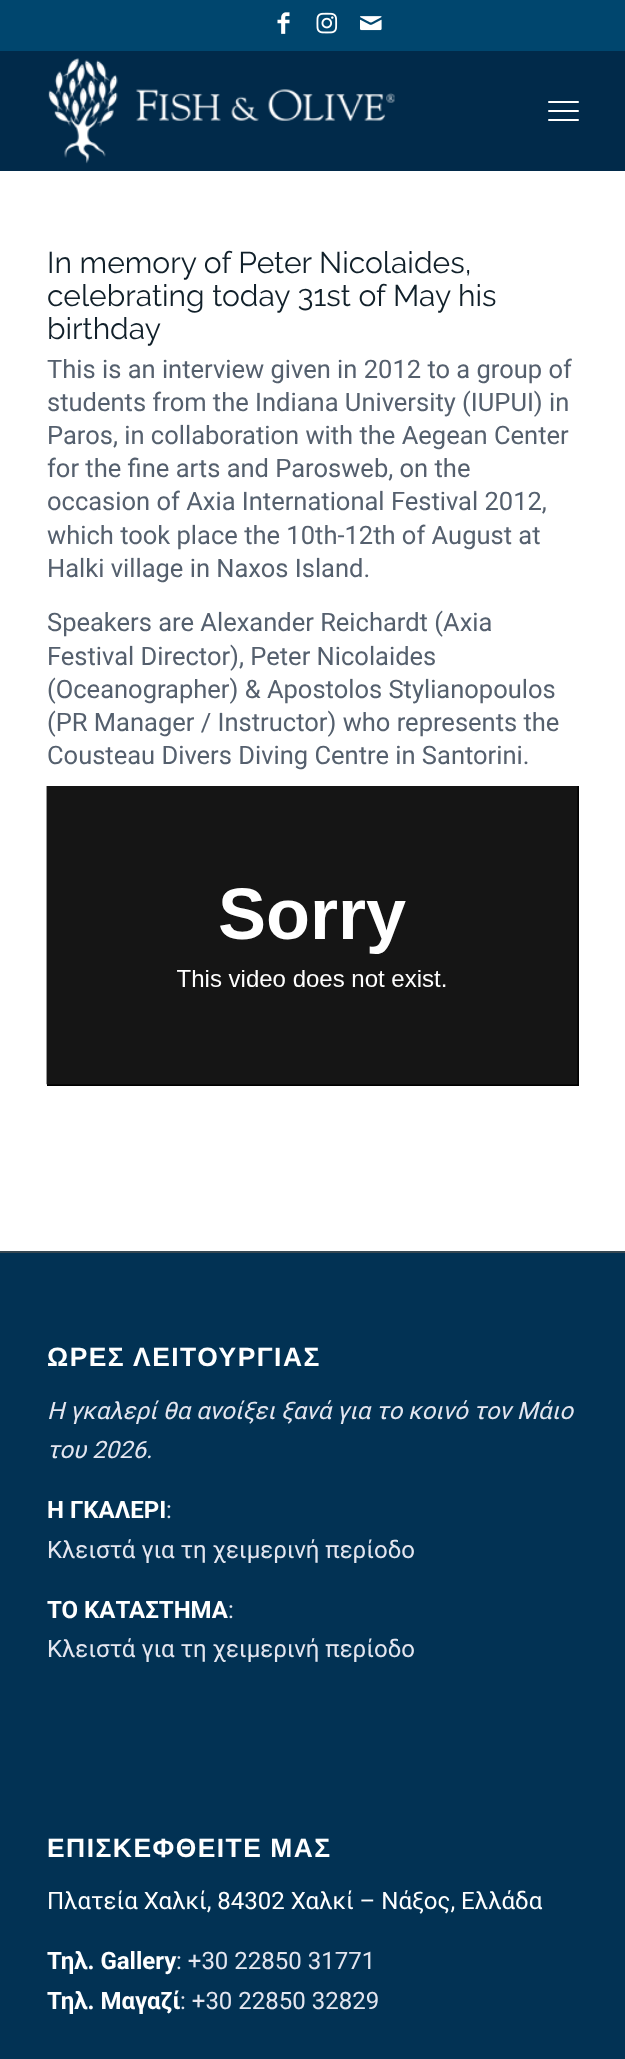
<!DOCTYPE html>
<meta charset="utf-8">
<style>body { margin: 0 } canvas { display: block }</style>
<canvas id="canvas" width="625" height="2059"></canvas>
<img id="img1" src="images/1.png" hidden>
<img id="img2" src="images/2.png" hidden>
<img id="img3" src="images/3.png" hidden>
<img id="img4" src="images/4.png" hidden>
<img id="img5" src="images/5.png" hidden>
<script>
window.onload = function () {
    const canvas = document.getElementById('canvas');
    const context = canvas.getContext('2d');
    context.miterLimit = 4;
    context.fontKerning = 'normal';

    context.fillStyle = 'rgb(255, 255, 255)';
    context.fillRect(0, 0, 625, 2059);
    context.fillStyle = 'rgb(0, 70, 110)';
    context.fillRect(0, 0, 625, 51);
    context.drawImage(document.getElementById('img1'), 277, 12, 13, 22);
    context.drawImage(document.getElementById('img2'), 316, 12, 22, 22);
    context.drawImage(document.getElementById('img3'), 360, 16, 22, 15);
    context.fillStyle = 'rgb(1, 42, 74)';
    context.fillRect(0, 51, 625, 120);
    context.drawImage(document.getElementById('img4'), 48, 58, 347, 106);
    context.fillStyle = 'rgb(255, 255, 255)';
    context.beginPath();
    context.roundRect(548, 110, 31, 2, 1);
    context.fill();
    context.beginPath();
    context.roundRect(548, 101, 31, 2, 1);
    context.fill();
    context.beginPath();
    context.roundRect(548, 119, 31, 2, 1);
    context.fill();
    context.fillStyle = 'rgb(0, 0, 0)';
    context.fillRect(47, 786, 532, 300);
    context.drawImage(document.getElementById('img5'), 46, 786, 532, 299);
    context.fillStyle = 'rgb(2, 50, 84)';
    context.fillRect(0, 1253, 625, 806);
    context.fillStyle = 'rgb(56, 72, 82)';
    context.fillRect(0, 1251, 625, 2);
    context.font = '100 30px Raleway';
    context.fillStyle = 'rgb(17, 32, 42)';
    context.fillText('In memory of Peter Nicolaides,', 47, 273);
    context.fillText('celebrating today 31st of May his', 47, 306);
    context.fillText('birthday', 47, 339);
    context.font = '25.5px Roboto';
    context.fillStyle = 'rgb(85, 96, 110)';
    context.fillText('This is an interview given in 2012 to a group of', 47, 378);
    context.fillText('students from the Indiana University (IUPUI) in', 47, 411);
    context.fillText('Paros, in collaboration with the Aegean Center', 47, 444);
    context.fillText('for the fine arts and Parosweb, on the', 47, 477);
    context.fillText('occasion of Axia International Festival 2012,', 47, 510);
    context.fillText('which took place the 10th-12th of August at', 47, 544);
    context.fillText('Halki village in Naxos Island.', 47, 577);
    context.fillText('Speakers are Alexander Reichardt (Axia', 47, 631);
    context.fillText('Festival Director), Peter Nicolaides', 47, 665);
    context.fillText('(Oceanographer) & Apostolos Stylianopoulos', 47, 698);
    context.fillText('(PR Manager / Instructor) who represents the', 47, 731);
    context.fillText('Cousteau Divers Diving Centre in Santorini.', 47, 764);
    context.letterSpacing = '1.5px';
    context.font = 'bold 26.4px Liberation Sans';
    context.fillStyle = 'rgb(255, 255, 255)';
    context.fillText('ΩΡΕΣ ΛΕΙΤΟΥΡΓΙΑΣ', 47, 1366);
    context.letterSpacing = '0px';
    context.font = 'italic 24px Roboto';
    context.fillStyle = 'rgb(228, 230, 240)';
    context.fillText('Η γκαλερί θα ανοίξει ξανά για το κοινό τον Μάιο', 47, 1419);
    context.fillText('του 2026.', 47, 1458);
    context.font = 'bold 24px Roboto';
    context.fillStyle = 'rgb(255, 255, 255)';
    context.fillText('Η ΓΚΑΛΕΡΙ', 47, 1518);
    context.font = '24px Roboto';
    context.fillStyle = 'rgb(228, 230, 240)';
    context.fillText(':', 166, 1518);
    context.fillText('Κλειστά για τη χειμερινή περίοδο', 47, 1558);
    context.font = 'bold 24px Roboto';
    context.fillStyle = 'rgb(255, 255, 255)';
    context.fillText('ΤΟ ΚΑΤΑΣΤΗΜΑ', 47, 1618);
    context.font = '24px Roboto';
    context.fillStyle = 'rgb(228, 230, 240)';
    context.fillText(':', 228, 1618);
    context.fillText('Κλειστά για τη χειμερινή περίοδο', 47, 1657);
    context.letterSpacing = '1.5px';
    context.wordSpacing = '-1px';
    context.font = 'bold 26.4px Liberation Sans';
    context.fillStyle = 'rgb(255, 255, 255)';
    context.fillText('ΕΠΙΣΚΕΦΘΕΙΤΕ ΜΑΣ', 47, 1857);
    context.letterSpacing = '0px';
    context.wordSpacing = '0px';
    context.font = '24px Roboto';
    context.fillText('Πλατεία Χαλκί, 84302 Χαλκί – Νάξος, Ελλάδα', 47, 1909);
    context.font = 'bold 24px Roboto';
    context.fillText('Τηλ. Gallery', 47, 1969);
    context.font = '24px Roboto';
    context.fillStyle = 'rgb(228, 230, 240)';
    context.fillText(': +30 22850 31771', 176, 1969);
    context.font = 'bold 24px Roboto';
    context.fillStyle = 'rgb(255, 255, 255)';
    context.fillText('Τηλ. Μαγαζί', 47, 2009);
    context.font = '24px Roboto';
    context.fillStyle = 'rgb(228, 230, 240)';
    context.fillText(': +30 22850 32829', 180, 2009);
};
</script>
